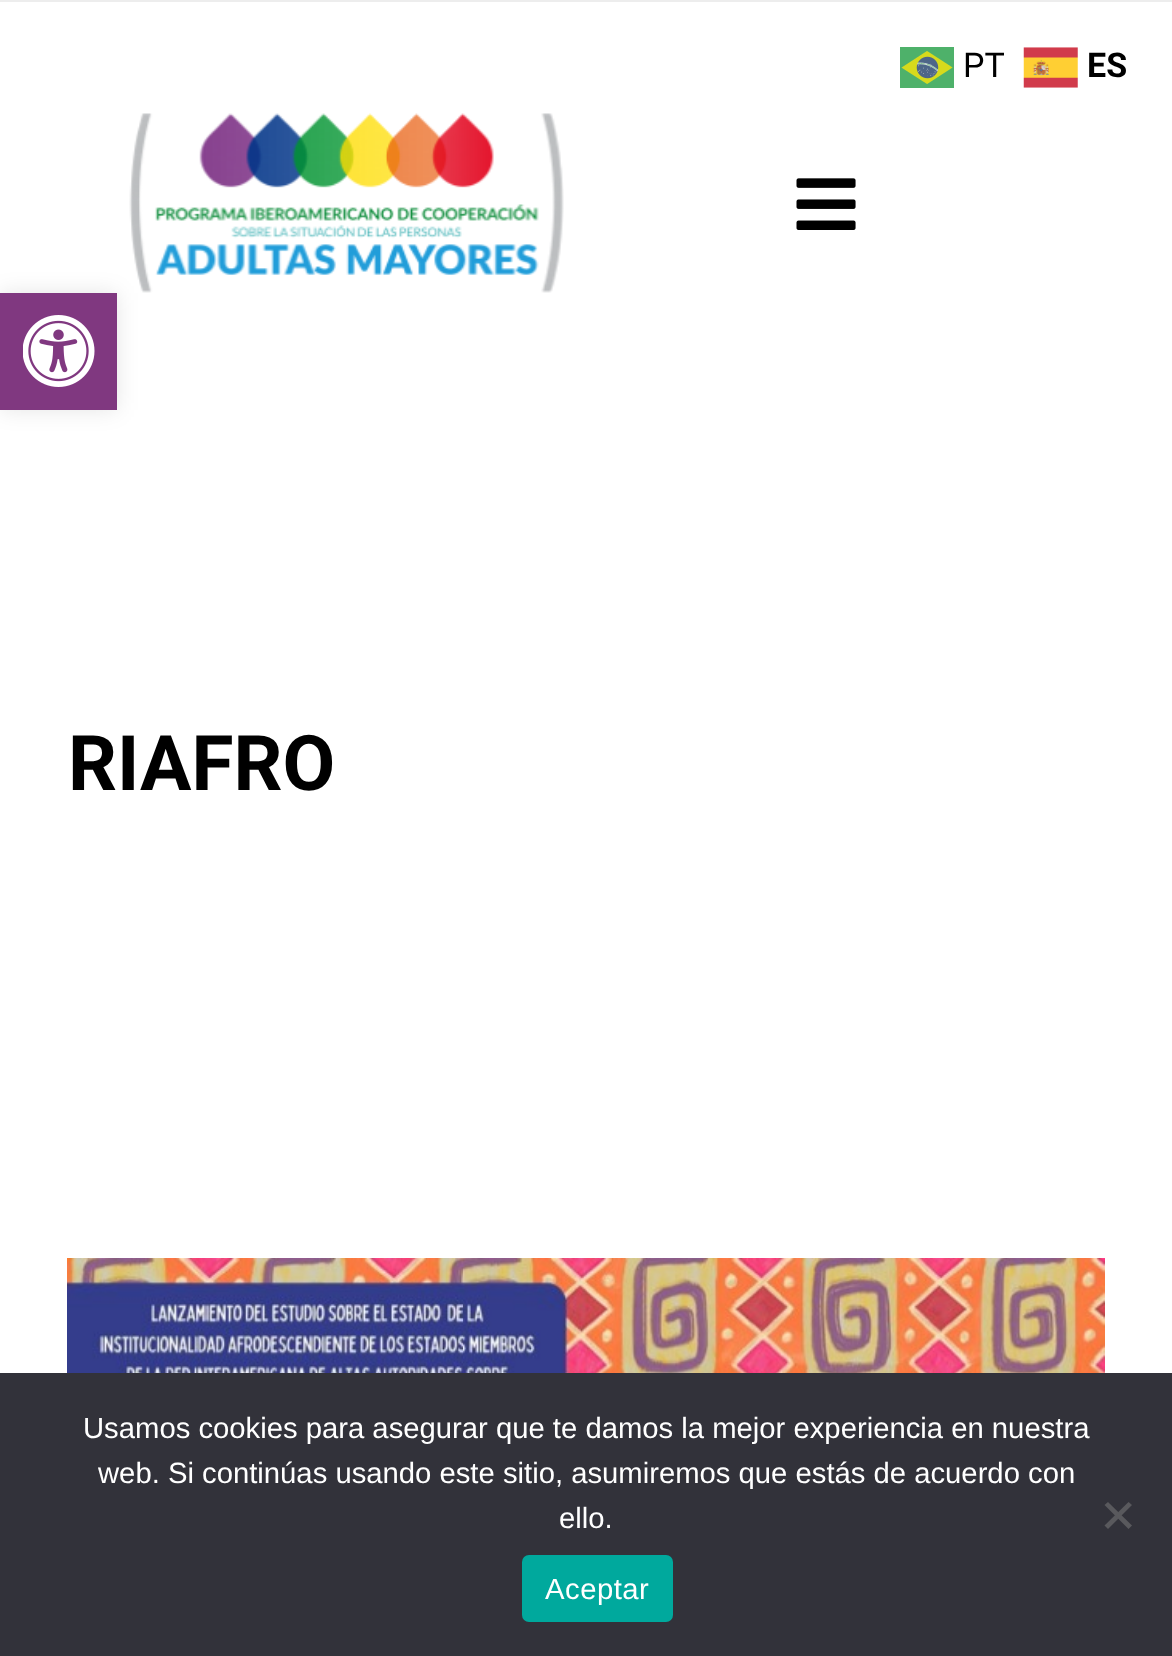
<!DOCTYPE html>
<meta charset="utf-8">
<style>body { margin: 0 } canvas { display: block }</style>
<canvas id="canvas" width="1172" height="1656"></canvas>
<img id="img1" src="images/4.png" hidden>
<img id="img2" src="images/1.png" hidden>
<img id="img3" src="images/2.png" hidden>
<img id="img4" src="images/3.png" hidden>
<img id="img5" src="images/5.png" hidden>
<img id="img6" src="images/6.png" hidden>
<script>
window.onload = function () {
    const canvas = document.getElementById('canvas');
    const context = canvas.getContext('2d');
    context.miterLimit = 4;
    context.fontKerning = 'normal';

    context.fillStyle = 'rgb(255, 255, 255)';
    context.fillRect(0, 0, 1172, 1656);
    context.drawImage(document.getElementById('img1'), 129, 113, 435, 180);
    context.fillStyle = 'rgba(0, 0, 0, 0.1)';
    context.filter = 'blur(11px)';
    context.beginPath();
    context.rect(0, 293, 117, 117);
    context.fill();
    context.filter = 'none';
    context.fillStyle = 'rgb(128, 56, 128)';
    context.fillRect(0, 293, 117, 117);
    context.drawImage(document.getElementById('img2'), 23, 315, 72, 72);
    context.drawImage(document.getElementById('img3'), 900, 47, 54, 41);
    context.drawImage(document.getElementById('img4'), 1023, 47, 55, 41);
    context.fillStyle = 'rgb(50, 50, 58)';
    context.fillRect(0, 1373, 1172, 283);
    context.fillStyle = 'rgb(89, 89, 93)';
    context.beginPath();
    context.moveTo(1128.5, 1502);
    context.lineTo(1132, 1505);
    context.lineTo(1108, 1529);
    context.lineTo(1104.5, 1525.5);
    context.closePath();
    context.fill();
    context.beginPath();
    context.moveTo(1104.5, 1505);
    context.lineTo(1108, 1502);
    context.lineTo(1132, 1525.5);
    context.lineTo(1128.5, 1529);
    context.closePath();
    context.fill();
    context.fillStyle = 'rgb(0, 169, 157)';
    context.beginPath();
    context.roundRect(522, 1555, 151, 67, 7);
    context.fill();
    context.fillStyle = 'rgb(237, 237, 237)';
    context.fillRect(0, 0, 1172, 2);
    context.drawImage(document.getElementById('img5'), 796, 178, 60, 52);
    context.drawImage(document.getElementById('img6'), 67, 1258, 1038, 115);
    context.font = '34px Roboto';
    context.fillStyle = 'rgb(0, 0, 0)';
    context.fillText('PT', 963, 77);
    context.font = 'bold 34px Roboto';
    context.fillText('ES', 1087, 77);
    context.font = '29.25px Liberation Sans';
    context.fillStyle = 'rgb(255, 255, 255)';
    context.fillText('Usamos cookies para asegurar que te damos la mejor experiencia en nuestra', 83, 1438);
    context.fillText('web. Si continúas usando este sitio, asumiremos que estás de acuerdo con', 98, 1483);
    context.fillText('ello.', 559, 1528);
    context.letterSpacing = '0.5px';
    context.fillText('Aceptar', 545, 1599);
    context.letterSpacing = '0px';
    context.font = 'bold 76.5px Roboto';
    context.fillStyle = 'rgb(0, 0, 0)';
    context.fillText('RIAFRO', 68, 790);
};
</script>
